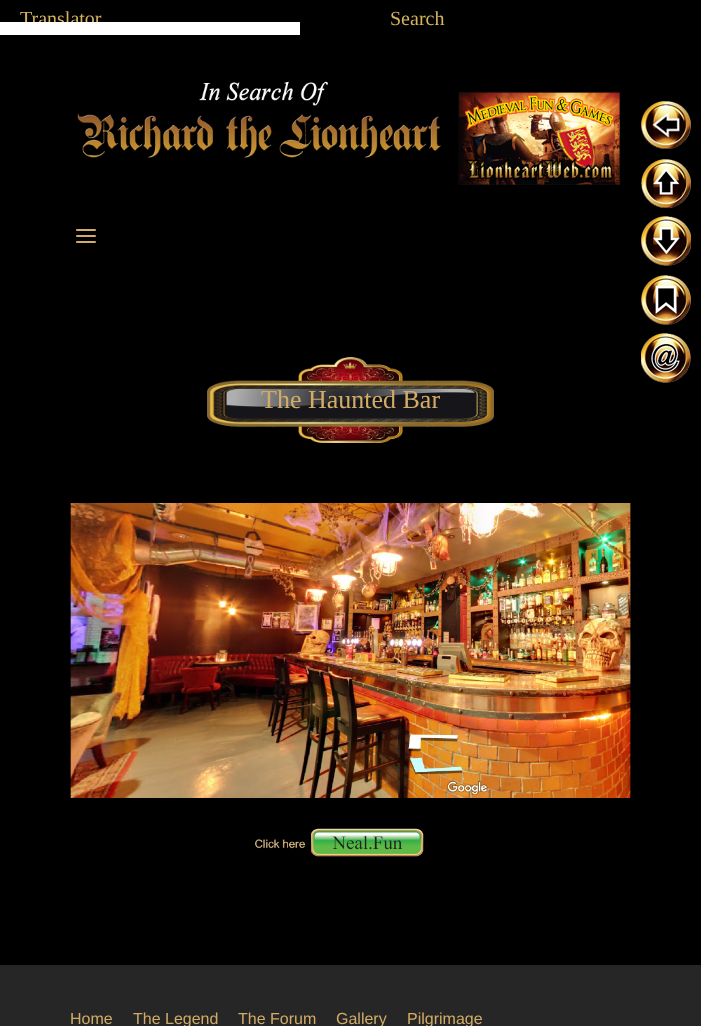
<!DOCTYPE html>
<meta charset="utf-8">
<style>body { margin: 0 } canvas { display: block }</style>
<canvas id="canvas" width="701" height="1026"></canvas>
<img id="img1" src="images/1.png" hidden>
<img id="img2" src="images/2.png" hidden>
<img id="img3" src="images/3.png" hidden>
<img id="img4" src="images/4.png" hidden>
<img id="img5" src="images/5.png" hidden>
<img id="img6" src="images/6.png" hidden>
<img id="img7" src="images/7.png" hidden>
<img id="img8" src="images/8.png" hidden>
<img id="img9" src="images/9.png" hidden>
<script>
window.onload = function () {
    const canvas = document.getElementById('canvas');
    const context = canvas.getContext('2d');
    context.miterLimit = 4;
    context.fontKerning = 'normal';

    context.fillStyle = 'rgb(0, 0, 0)';
    context.fillRect(0, 0, 701, 1026);
    context.drawImage(document.getElementById('img1'), 641, 101, 50, 48);
    context.drawImage(document.getElementById('img2'), 641, 159, 50, 49);
    context.drawImage(document.getElementById('img3'), 641, 216, 50, 50);
    context.drawImage(document.getElementById('img4'), 641, 275, 50, 50);
    context.drawImage(document.getElementById('img5'), 641, 333, 50, 50);
    context.drawImage(document.getElementById('img6'), 77, 81, 543, 104);
    context.drawImage(document.getElementById('img7'), 76, 229, 20, 14);
    context.drawImage(document.getElementById('img8'), 207, 357, 287, 86);
    context.drawImage(document.getElementById('img9'), 70, 503, 561, 354);
    context.fillStyle = 'rgb(38, 38, 38)';
    context.fillRect(0, 965, 701, 61);
    context.font = '20px Liberation Serif';
    context.fillStyle = 'rgb(214, 179, 95)';
    context.fillText('Translator', 20, 25);
    context.fillText('Search', 390, 25);
    context.fillStyle = 'rgb(255, 255, 255)';
    context.fillRect(0, 22, 300, 13);
    context.font = '26px Liberation Serif';
    context.fillStyle = 'rgb(210, 172, 103)';
    context.fillText('The Haunted Bar', 261, 408);
    context.font = '16px Liberation Sans';
    context.fillText('Home', 70, 1024);
    context.fillText('The Legend', 133, 1024);
    context.fillText('The Forum', 238, 1024);
    context.fillText('Gallery', 336, 1024);
    context.fillText('Pilgrimage', 407, 1024);
};
</script>
